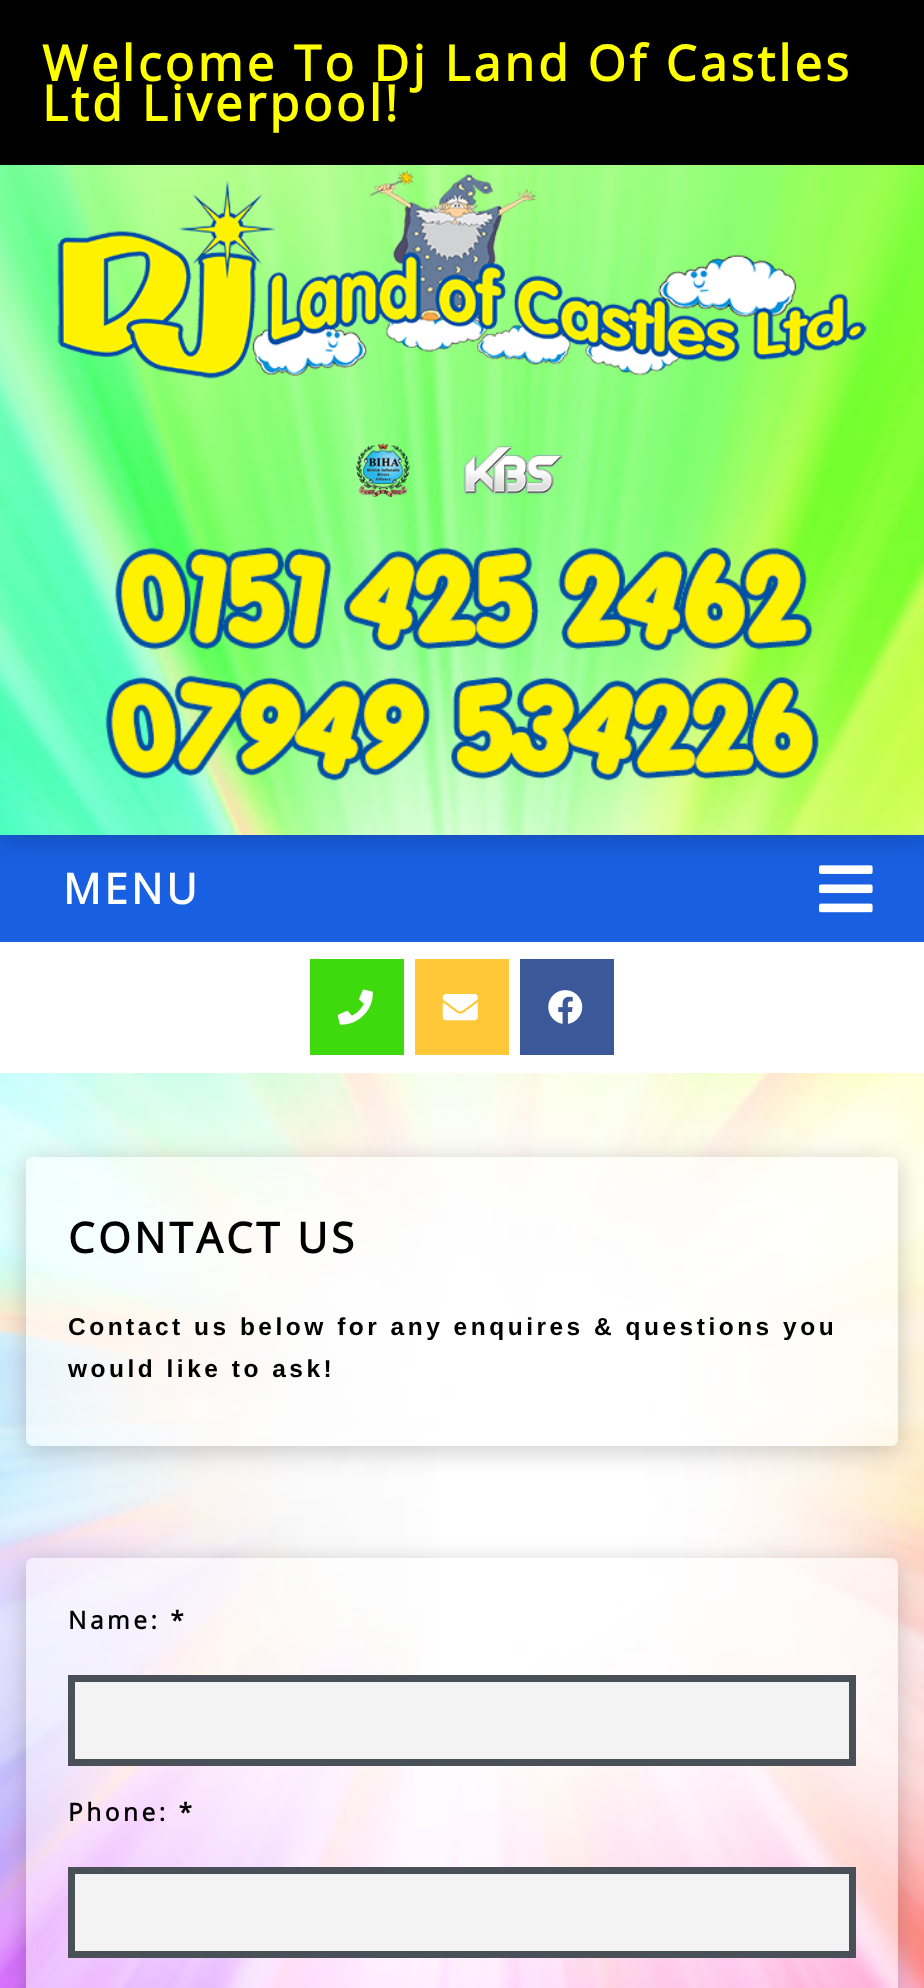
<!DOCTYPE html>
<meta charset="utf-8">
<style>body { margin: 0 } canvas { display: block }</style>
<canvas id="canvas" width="924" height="1988"></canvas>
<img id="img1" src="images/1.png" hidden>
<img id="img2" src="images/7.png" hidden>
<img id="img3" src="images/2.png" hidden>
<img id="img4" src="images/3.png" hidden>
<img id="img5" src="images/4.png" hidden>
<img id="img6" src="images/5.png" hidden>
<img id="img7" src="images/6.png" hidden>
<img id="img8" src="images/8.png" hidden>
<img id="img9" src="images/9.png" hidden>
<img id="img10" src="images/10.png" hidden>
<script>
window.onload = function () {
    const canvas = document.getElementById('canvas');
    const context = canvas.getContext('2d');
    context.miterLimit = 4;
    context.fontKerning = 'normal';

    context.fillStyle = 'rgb(255, 255, 255)';
    context.fillRect(0, 0, 924, 1988);
    context.drawImage(document.getElementById('img1'), 0, 165, 924, 1823);
    context.fillStyle = 'rgb(25, 95, 225)';
    context.fillRect(0, 835, 924, 107);
    context.drawImage(document.getElementById('img2'), 819, 865, 54, 48);
    context.save();
    context.beginPath();
    context.moveTo(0, 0);
    context.lineTo(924, 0);
    context.lineTo(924, 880);
    context.lineTo(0, 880);
    context.closePath();
    context.moveTo(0, 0);
    context.lineTo(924, 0);
    context.lineTo(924, 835);
    context.lineTo(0, 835);
    context.closePath();
    context.clip('evenodd');
    context.fillStyle = 'rgba(0, 0, 0, 0.2)';
    context.filter = 'blur(13px)';
    context.beginPath();
    context.rect(0, 5, 924, 835);
    context.fill();
    context.filter = 'none';
    context.restore();
    context.fillStyle = 'rgb(0, 0, 0)';
    context.fillRect(0, 0, 924, 165);
    context.drawImage(document.getElementById('img3'), 57, 170, 810, 209);
    context.drawImage(document.getElementById('img4'), 356, 443, 54, 54);
    context.drawImage(document.getElementById('img5'), 463, 446, 100, 49);
    context.drawImage(document.getElementById('img6'), 115, 547, 698, 104);
    context.drawImage(document.getElementById('img7'), 105, 675, 714, 106);
    context.fillStyle = 'rgb(255, 255, 255)';
    context.fillRect(0, 942, 924, 131);
    context.fillStyle = 'rgb(63, 218, 14)';
    context.fillRect(310, 959, 94, 96);
    context.drawImage(document.getElementById('img8'), 337, 989, 36, 36);
    context.fillStyle = 'rgb(255, 200, 56)';
    context.fillRect(415, 959, 94, 96);
    context.drawImage(document.getElementById('img9'), 442, 994, 36, 27);
    context.fillStyle = 'rgb(59, 89, 152)';
    context.fillRect(520, 959, 94, 96);
    context.drawImage(document.getElementById('img10'), 548, 990, 35, 34);
    context.save();
    context.beginPath();
    context.moveTo(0, 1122);
    context.lineTo(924, 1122);
    context.lineTo(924, 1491);
    context.lineTo(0, 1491);
    context.closePath();
    context.moveTo(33, 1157);
    context.lineTo(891, 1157);
    context.bezierCurveTo(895, 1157, 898, 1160, 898, 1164);
    context.lineTo(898, 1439);
    context.bezierCurveTo(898, 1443, 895, 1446, 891, 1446);
    context.lineTo(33, 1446);
    context.bezierCurveTo(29, 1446, 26, 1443, 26, 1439);
    context.lineTo(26, 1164);
    context.bezierCurveTo(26, 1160, 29, 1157, 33, 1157);
    context.closePath();
    context.clip('evenodd');
    context.fillStyle = 'rgba(0, 0, 0, 0.2)';
    context.filter = 'blur(13px)';
    context.beginPath();
    context.roundRect(26, 1162, 872, 289, 7);
    context.fill();
    context.filter = 'none';
    context.restore();
    context.fillStyle = 'rgba(255, 255, 255, 0.5)';
    context.beginPath();
    context.roundRect(26, 1157, 872, 289, 7);
    context.fill();
    context.save();
    context.beginPath();
    context.moveTo(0, 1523);
    context.lineTo(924, 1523);
    context.lineTo(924, 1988);
    context.lineTo(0, 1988);
    context.closePath();
    context.moveTo(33, 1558);
    context.lineTo(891, 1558);
    context.bezierCurveTo(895, 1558, 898, 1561, 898, 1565);
    context.lineTo(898, 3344);
    context.bezierCurveTo(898, 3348, 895, 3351, 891, 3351);
    context.lineTo(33, 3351);
    context.bezierCurveTo(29, 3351, 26, 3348, 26, 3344);
    context.lineTo(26, 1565);
    context.bezierCurveTo(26, 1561, 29, 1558, 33, 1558);
    context.closePath();
    context.clip('evenodd');
    context.fillStyle = 'rgba(0, 0, 0, 0.2)';
    context.filter = 'blur(13px)';
    context.beginPath();
    context.roundRect(26, 1563, 872, 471, 7);
    context.fill();
    context.filter = 'none';
    context.restore();
    context.beginPath();
    context.roundRect(26, 1558, 872, 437, 7);
    context.fill();
    context.fillStyle = 'rgb(243, 243, 243)';
    context.beginPath();
    context.rect(71.5, 1678.5, 781, 84);
    context.fill();
    context.strokeStyle = 'rgb(73, 80, 87)';
    context.lineWidth = 7;
    context.stroke();
    context.beginPath();
    context.rect(71.5, 1870.5, 781, 84);
    context.fill();
    context.stroke();
    context.letterSpacing = '3.5px';
    context.font = 'bold 49px Open Sans';
    context.fillStyle = 'rgb(255, 255, 0)';
    context.fillText('Welcome To Dj Land Of Castles', 42, 81);
    context.fillText('Ltd Liverpool!', 42, 121);
    context.font = 'bold 42px Open Sans';
    context.fillStyle = 'rgb(255, 255, 255)';
    context.fillText('MENU', 63, 904);
    context.fillStyle = 'rgb(0, 0, 0)';
    context.fillText('CONTACT US', 68, 1253);
    context.font = 'bold 24.5px Liberation Sans';
    context.fillText('Contact us below for any enquires & questions you', 68, 1335);
    context.fillText('would like to ask!', 68, 1377);
    context.font = 'bold 24.5px Open Sans';
    context.fillText('Name: *', 68, 1629);
    context.fillText('Phone: *', 68, 1821);
};
</script>
